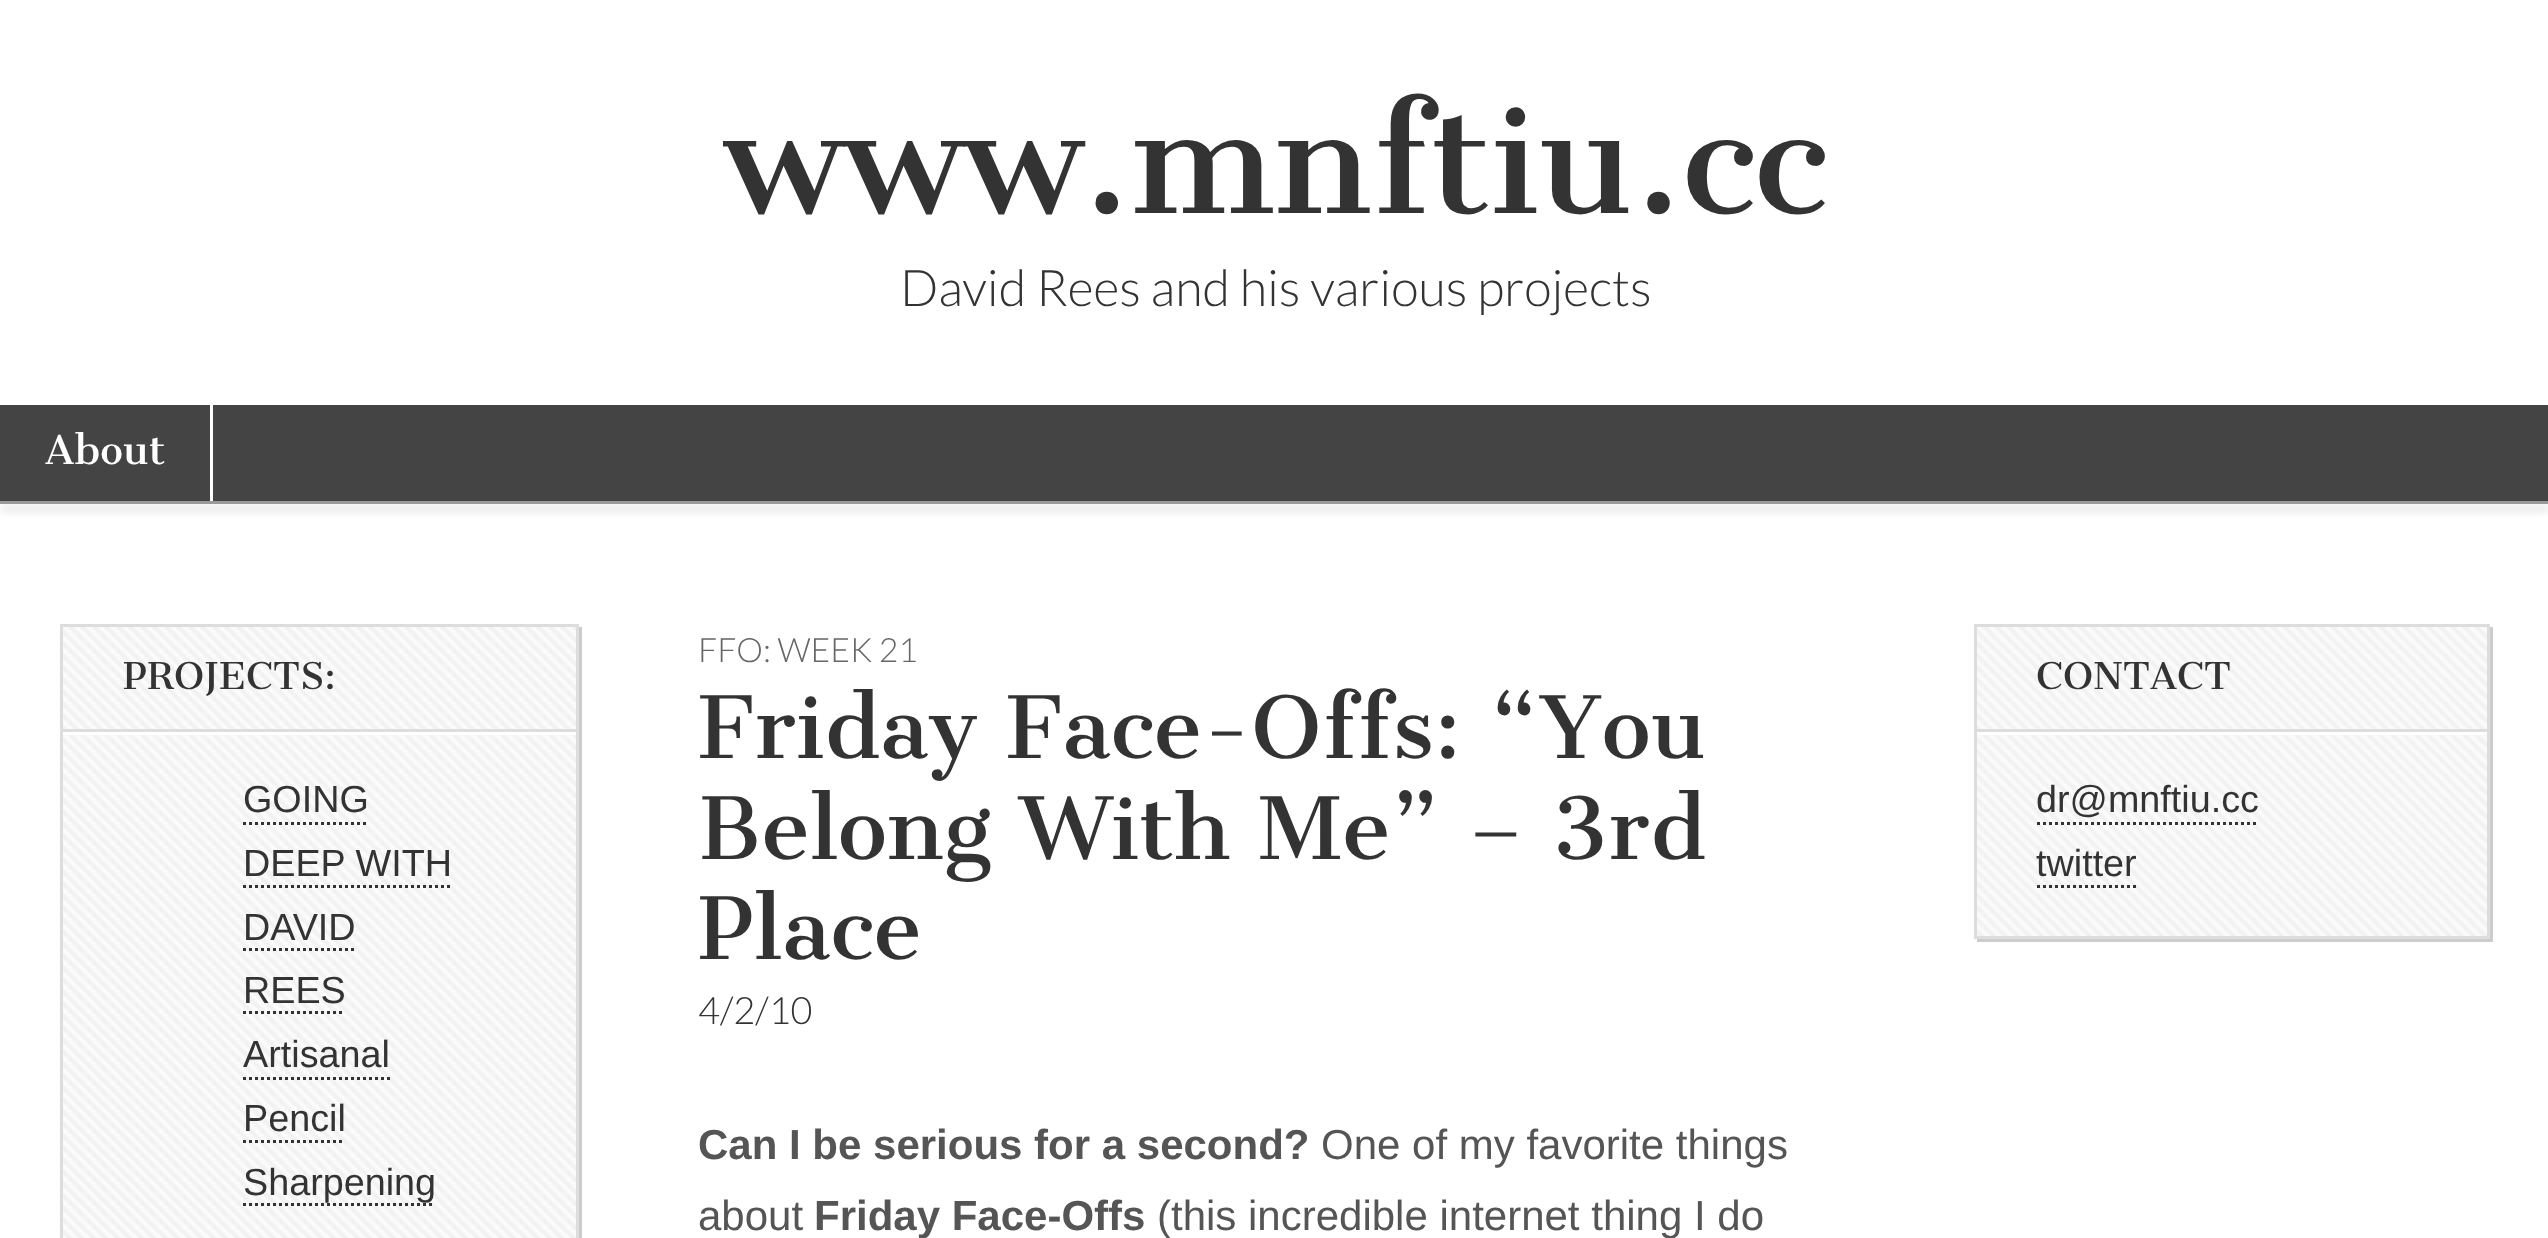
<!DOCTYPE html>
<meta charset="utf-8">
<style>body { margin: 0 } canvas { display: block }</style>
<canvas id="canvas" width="2548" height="1238"></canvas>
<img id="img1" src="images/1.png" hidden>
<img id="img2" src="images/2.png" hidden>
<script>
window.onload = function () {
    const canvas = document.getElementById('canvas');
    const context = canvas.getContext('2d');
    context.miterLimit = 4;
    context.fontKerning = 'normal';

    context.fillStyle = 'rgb(255, 255, 255)';
    context.fillRect(0, 0, 2548, 1238);
    context.fillStyle = 'rgba(0, 0, 0, 0.2)';
    context.filter = 'blur(4.5px)';
    context.beginPath();
    context.rect(0, 507, 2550, 3);
    context.fill();
    context.filter = 'none';
    context.fillStyle = 'rgb(68, 68, 68)';
    context.fillRect(0, 405, 2548, 96);
    context.fillStyle = 'rgb(255, 255, 255)';
    context.fillRect(210, 405, 3, 96);
    context.fillStyle = 'rgb(153, 153, 153)';
    context.fillRect(0, 501, 2548, 3);
    context.fillStyle = 'rgb(204, 204, 204)';
    context.beginPath();
    context.moveTo(63, 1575);
    context.lineTo(63, 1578);
    context.lineTo(582, 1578);
    context.lineTo(582, 627);
    context.lineTo(579, 627);
    context.lineTo(579, 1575);
    context.closePath();
    context.fill();
    context.drawImage(document.getElementById('img1'), 63, 627, 513, 611);
    context.strokeStyle = 'rgb(221, 221, 221)';
    context.lineWidth = 3;
    context.strokeRect(61.5, 625.5, 516, 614);
    context.fillStyle = 'rgb(255, 255, 255)';
    context.fillRect(63, 732, 513, 3);
    context.fillStyle = 'rgb(221, 221, 221)';
    context.fillRect(63, 729, 513, 3);
    context.beginPath();
    context.moveTo(243, 823.5);
    context.lineTo(369, 823.5);
    context.strokeStyle = 'rgb(51, 51, 51)';
    context.setLineDash([3, 3]);
    context.stroke();
    context.beginPath();
    context.moveTo(243, 886.5);
    context.lineTo(453, 886.5);
    context.stroke();
    context.beginPath();
    context.moveTo(243, 949.5);
    context.lineTo(357, 949.5);
    context.stroke();
    context.beginPath();
    context.moveTo(243, 1012.5);
    context.lineTo(345, 1012.5);
    context.stroke();
    context.beginPath();
    context.moveTo(243, 1078.5);
    context.lineTo(390, 1078.5);
    context.stroke();
    context.beginPath();
    context.moveTo(243, 1141.5);
    context.lineTo(345, 1141.5);
    context.stroke();
    context.beginPath();
    context.moveTo(243, 1204.5);
    context.lineTo(435, 1204.5);
    context.stroke();
    context.fillStyle = 'rgb(204, 204, 204)';
    context.beginPath();
    context.moveTo(1977, 939);
    context.lineTo(1977, 942);
    context.lineTo(2493, 942);
    context.lineTo(2493, 627);
    context.lineTo(2490, 627);
    context.lineTo(2490, 939);
    context.closePath();
    context.fill();
    context.drawImage(document.getElementById('img2'), 1977, 627, 510, 309);
    context.strokeStyle = 'rgb(221, 221, 221)';
    context.setLineDash([]);
    context.strokeRect(1975.5, 625.5, 513, 312);
    context.fillStyle = 'rgb(255, 255, 255)';
    context.fillRect(1977, 732, 510, 3);
    context.fillStyle = 'rgb(221, 221, 221)';
    context.fillRect(1977, 729, 510, 3);
    context.beginPath();
    context.moveTo(2037, 823.5);
    context.lineTo(2259, 823.5);
    context.strokeStyle = 'rgb(51, 51, 51)';
    context.setLineDash([3, 3]);
    context.stroke();
    context.beginPath();
    context.moveTo(2037, 886.5);
    context.lineTo(2136, 886.5);
    context.stroke();
    context.font = '144px Cantata One';
    context.fillStyle = 'rgb(51, 51, 51)';
    context.fillText('www.mnftiu.cc', 723, 213);
    context.font = '300 50.4px Lato';
    context.fillText('David Rees and his various projects', 900, 306);
    context.font = '39px Cantata One';
    context.fillStyle = 'rgb(255, 255, 255)';
    context.fillText('About', 45, 464);
    context.font = '36px Cantata One';
    context.fillStyle = 'rgb(51, 51, 51)';
    context.fillText('PROJECTS:', 123, 689);
    context.font = '37.75px Liberation Sans';
    context.fillText('GOING', 243, 812);
    context.fillText('DEEP WITH', 243, 876);
    context.fillText('DAVID', 243, 940);
    context.fillText('REES', 243, 1003);
    context.fillText('Artisanal', 243, 1067);
    context.fillText('Pencil', 243, 1131);
    context.fillText('Sharpening', 243, 1195);
    context.font = '300 33.5px Lato';
    context.fillStyle = 'rgb(102, 102, 102)';
    context.fillText('FFO: WEEK 21', 698, 662);
    context.font = '84px Cantata One';
    context.fillStyle = 'rgb(51, 51, 51)';
    context.fillText('Friday Face-Offs: “You', 698, 758);
    context.fillText('Belong With Me” – 3rd', 698, 859);
    context.fillText('Place', 698, 959);
    context.font = '300 37.75px Lato';
    context.fillText('4/2/10', 698, 1024);
    context.font = 'bold 42px Liberation Sans';
    context.fillStyle = 'rgb(85, 85, 85)';
    context.fillText('Can I be serious for a second?', 698, 1159);
    context.font = '42px Liberation Sans';
    context.fillText('One of my favorite things', 1321, 1159);
    context.fillText('about', 698, 1230);
    context.font = 'bold 42px Liberation Sans';
    context.fillText('Friday Face-Offs', 814, 1230);
    context.font = '42px Liberation Sans';
    context.fillText('(this incredible internet thing I do', 1157, 1230);
    context.font = '36px Cantata One';
    context.fillStyle = 'rgb(51, 51, 51)';
    context.fillText('CONTACT', 2036, 689);
    context.font = '37.75px Liberation Sans';
    context.fillText('dr@mnftiu.cc', 2036, 812);
    context.fillText('twitter', 2036, 876);
};
</script>
